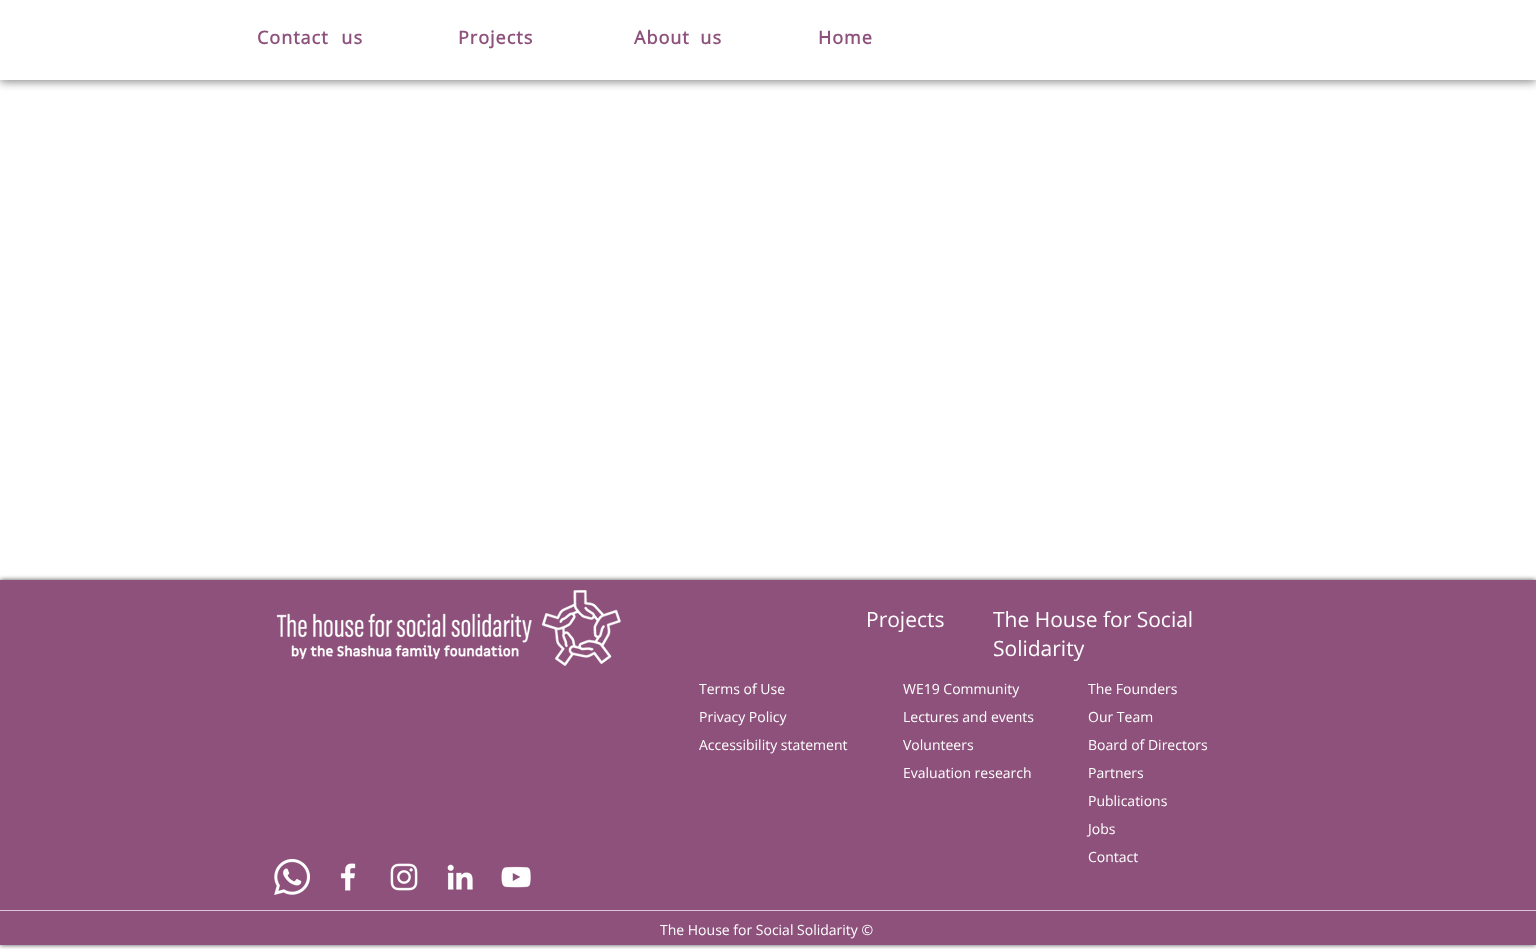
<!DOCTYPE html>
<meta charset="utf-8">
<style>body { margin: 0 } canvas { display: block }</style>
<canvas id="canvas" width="1536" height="949"></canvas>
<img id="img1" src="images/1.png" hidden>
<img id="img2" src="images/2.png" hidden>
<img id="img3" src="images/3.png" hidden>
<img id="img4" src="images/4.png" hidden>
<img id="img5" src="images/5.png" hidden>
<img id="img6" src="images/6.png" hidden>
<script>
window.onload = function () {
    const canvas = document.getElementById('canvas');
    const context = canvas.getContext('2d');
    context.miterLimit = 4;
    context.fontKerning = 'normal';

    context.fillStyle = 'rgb(255, 255, 255)';
    context.fillRect(0, 0, 1536, 949);
    context.save();
    context.beginPath();
    context.rect(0, 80, 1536, 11);
    context.clip();
    context.fillStyle = 'rgba(0, 0, 0, 0.46)';
    context.filter = 'blur(5px)';
    context.beginPath();
    context.rect(0, 2, 1536, 80);
    context.fill();
    context.filter = 'none';
    context.restore();
    context.fillStyle = 'rgba(0, 0, 0, 0.7)';
    context.filter = 'blur(2.5px)';
    context.beginPath();
    context.rect(0, 580, 1536, 365);
    context.fill();
    context.filter = 'none';
    context.fillStyle = 'rgb(141, 81, 123)';
    context.fillRect(0, 580, 1536, 365);
    context.drawImage(document.getElementById('img1'), 276, 589, 345, 77);
    context.drawImage(document.getElementById('img2'), 274, 859, 36, 36);
    context.drawImage(document.getElementById('img3'), 340, 863, 16, 28);
    context.drawImage(document.getElementById('img4'), 390, 863, 28, 28);
    context.drawImage(document.getElementById('img5'), 447, 864, 26, 26);
    context.drawImage(document.getElementById('img6'), 501, 866, 30, 22);
    context.fillStyle = 'rgb(223, 198, 215)';
    context.fillRect(0, 910, 1536, 1);
    context.letterSpacing = '1px';
    context.wordSpacing = '7px';
    context.font = 'bold 18px Open Sans';
    context.fillStyle = 'rgb(141, 81, 123)';
    context.fillText('Contact us', 257, 44);
    context.wordSpacing = '0px';
    context.fillText('Projects', 458, 44);
    context.wordSpacing = '5px';
    context.fillText('About us', 634, 44);
    context.wordSpacing = '0px';
    context.fillText('Home', 818, 44);
    context.letterSpacing = '0px';
    context.font = '21px Open Sans';
    context.fillStyle = 'rgb(255, 255, 255)';
    context.fillText('Projects', 866, 627);
    context.fillText('The House for Social', 993, 627);
    context.fillText('Solidarity', 993, 656);
    context.font = '14px Open Sans';
    context.fillText('Terms of Use', 699, 694);
    context.fillText('Privacy Policy', 699, 722);
    context.fillText('Accessibility statement', 699, 750);
    context.fillText('WE19 Community', 903, 694);
    context.fillText('Lectures and events', 903, 722);
    context.fillText('Volunteers', 903, 750);
    context.fillText('Evaluation research', 903, 778);
    context.fillText('The Founders', 1088, 694);
    context.fillText('Our Team', 1088, 722);
    context.fillText('Board of Directors', 1088, 750);
    context.fillText('Partners', 1088, 778);
    context.fillText('Publications', 1088, 806);
    context.fillText('Jobs', 1088, 834);
    context.fillText('Contact', 1088, 862);
    context.fillText('The House for Social Solidarity ©', 660, 935);
};
</script>
